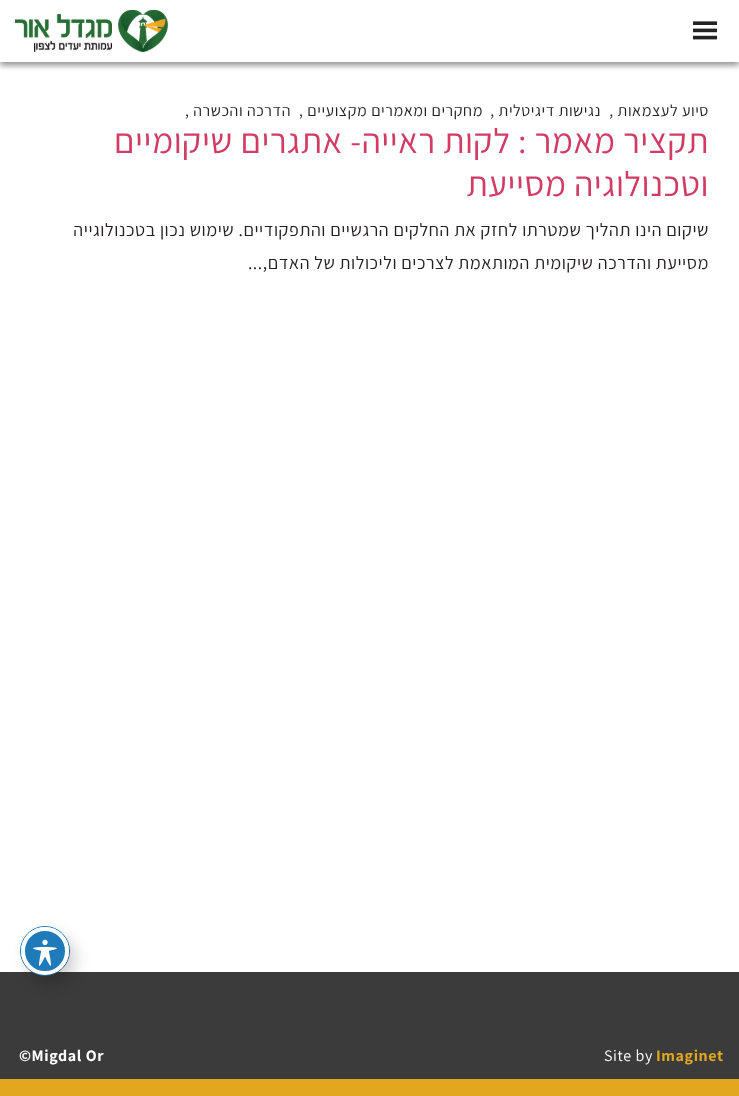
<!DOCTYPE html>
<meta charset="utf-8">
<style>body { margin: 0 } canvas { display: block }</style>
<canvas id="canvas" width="739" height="1096"></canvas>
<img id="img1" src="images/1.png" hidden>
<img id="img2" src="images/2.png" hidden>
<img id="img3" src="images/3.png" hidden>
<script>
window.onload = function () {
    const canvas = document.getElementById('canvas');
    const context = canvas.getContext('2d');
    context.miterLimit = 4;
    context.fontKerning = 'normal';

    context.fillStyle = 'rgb(255, 255, 255)';
    context.fillRect(0, 0, 739, 1096);
    context.fillStyle = 'rgba(0, 0, 0, 0.25)';
    context.filter = 'blur(3px)';
    context.beginPath();
    context.rect(0, 3, 739, 62);
    context.fill();
    context.filter = 'none';
    context.fillStyle = 'rgb(255, 255, 255)';
    context.fillRect(0, 0, 739, 62);
    context.save();
    context.beginPath();
    context.rect(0, 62, 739, 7);
    context.clip();
    context.fillStyle = 'rgba(0, 0, 0, 0.25)';
    context.filter = 'blur(3px)';
    context.beginPath();
    context.rect(0, 3, 739, 62);
    context.fill();
    context.filter = 'none';
    context.restore();
    context.drawImage(document.getElementById('img1'), 693, 21, 24, 19);
    context.drawImage(document.getElementById('img2'), 15, 10, 153, 42);
    context.fillStyle = 'rgb(59, 59, 59)';
    context.fillRect(0, 972, 739, 107);
    context.fillStyle = 'rgb(225, 168, 31)';
    context.fillRect(0, 1079, 739, 17);
    context.beginPath();
    context.arc(45, 951, 24.5, 0, 2 * Math.PI);
    context.strokeStyle = 'rgb(30, 122, 185)';
    context.stroke();
    context.fillStyle = 'rgba(0, 0, 0, 0.2)';
    context.filter = 'blur(8px)';
    context.beginPath();
    context.roundRect(27, 935, 48, 48, 24);
    context.fill();
    context.filter = 'none';
    context.fillStyle = 'rgb(30, 122, 185)';
    context.beginPath();
    context.arc(45, 951, 22, 0, 2 * Math.PI);
    context.fill();
    context.strokeStyle = 'rgb(255, 255, 255)';
    context.lineWidth = 4;
    context.stroke();
    context.drawImage(document.getElementById('img3'), 33, 939, 24, 27);
    context.letterSpacing = '0.6px';
    context.direction = 'rtl';
    context.font = '16px Assistant';
    context.fillStyle = 'rgb(35, 31, 32)';
    context.fillText('סיוע לעצמאות ,', 709, 116);
    context.fillText('נגישות דיגיטלית ,', 601, 116);
    context.fillText('מחקרים ומאמרים מקצועיים ,', 483, 116);
    context.fillText('הדרכה והכשרה ,', 291, 116);
    context.font = '35px Assistant';
    context.fillStyle = 'rgb(209, 60, 101)';
    context.fillText('תקציר מאמר : לקות ראייה- אתגרים שיקומיים', 709, 153);
    context.fillText('וטכנולוגיה מסייעת', 709, 196);
    context.font = '18px Assistant';
    context.fillStyle = 'rgb(35, 31, 32)';
    context.fillText('שיקום הינו תהליך שמטרתו לחזק את החלקים הרגשיים והתפקודיים. שימוש נכון בטכנולוגייה', 709, 236);
    context.fillText('מסייעת והדרכה שיקומית המותאמת לצרכים וליכולות של האדם,...', 709, 269);
    context.direction = 'ltr';
    context.font = 'bold 16px Assistant';
    context.fillStyle = 'rgb(225, 168, 31)';
    context.fillText('Imaginet', 656, 1061);
    context.font = '16px Assistant';
    context.fillStyle = 'rgb(255, 255, 255)';
    context.fillText('Site by', 604, 1061);
    context.font = 'bold 16px Assistant';
    context.fillText('©Migdal Or', 19, 1061);
};
</script>
